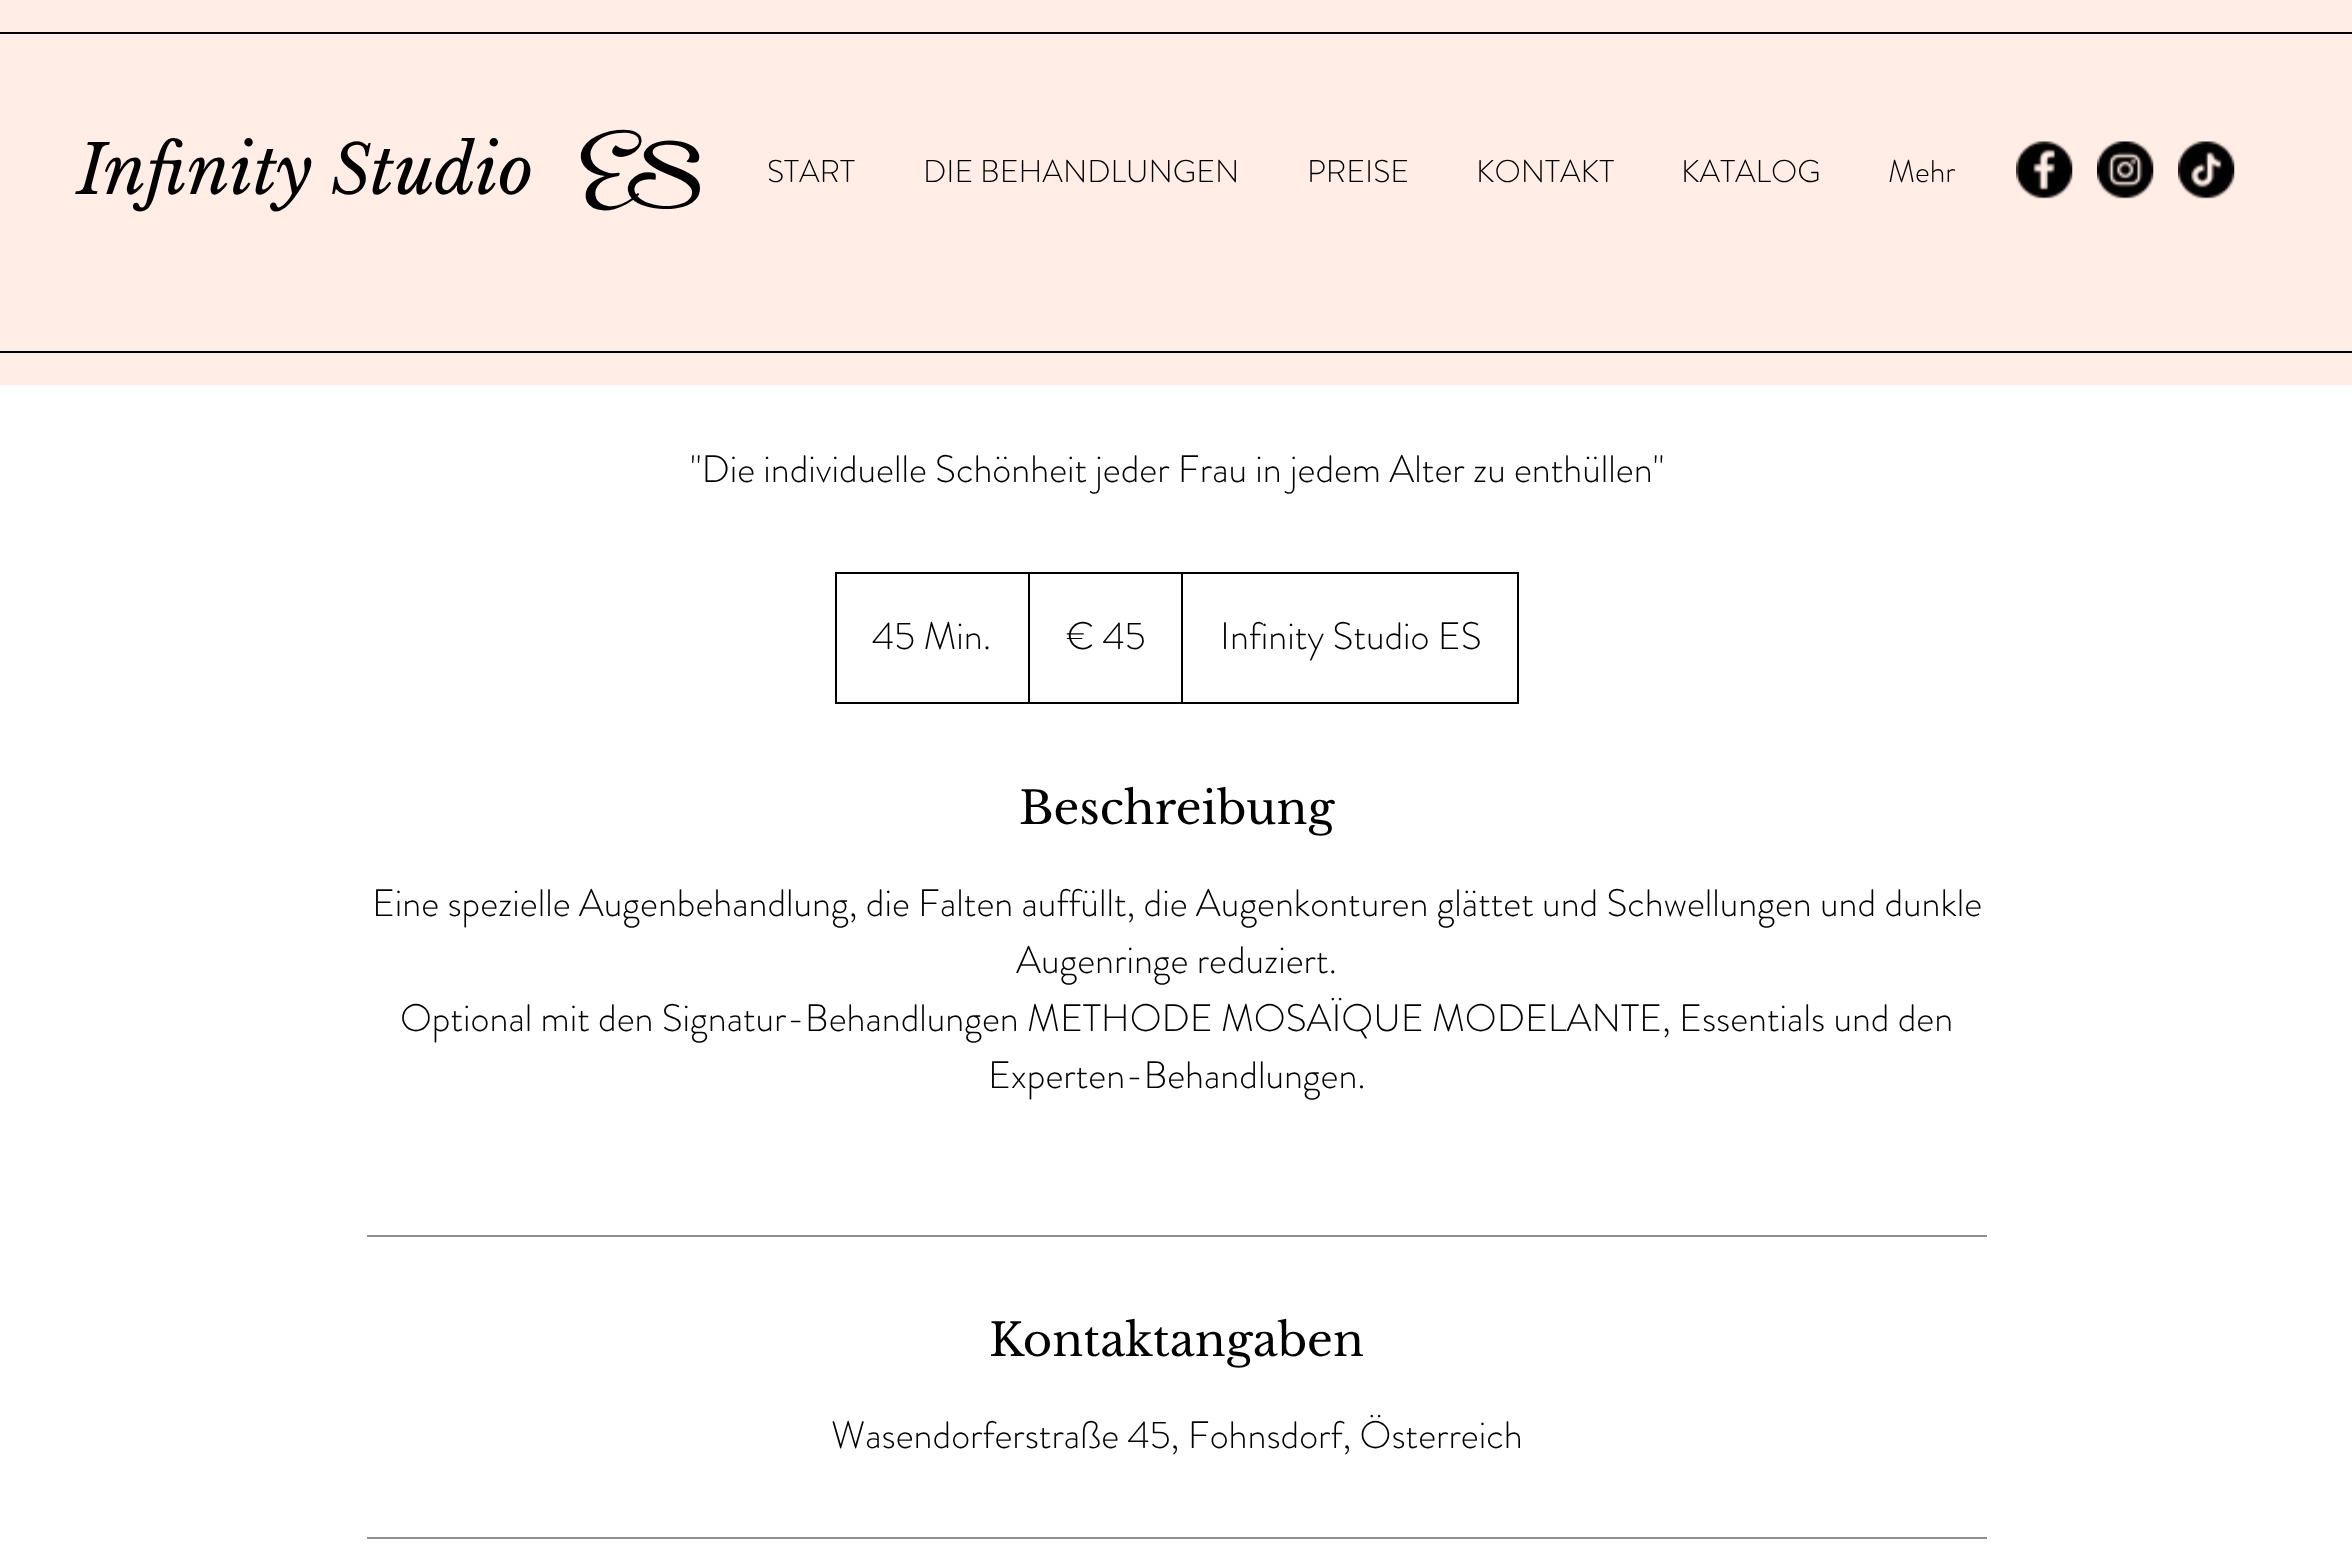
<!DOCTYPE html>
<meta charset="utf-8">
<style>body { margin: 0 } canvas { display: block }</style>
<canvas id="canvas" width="2352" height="1568"></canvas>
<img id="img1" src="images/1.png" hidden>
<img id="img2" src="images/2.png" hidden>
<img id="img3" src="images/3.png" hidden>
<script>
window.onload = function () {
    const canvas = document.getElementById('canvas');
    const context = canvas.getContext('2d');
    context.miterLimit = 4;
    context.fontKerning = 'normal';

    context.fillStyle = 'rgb(255, 255, 255)';
    context.fillRect(0, 0, 2352, 1568);
    context.fillStyle = 'rgb(255, 237, 230)';
    context.fillRect(0, 0, 2352, 385);
    context.fillStyle = 'rgb(0, 0, 0)';
    context.fillRect(0, 32, 2352, 2);
    context.fillRect(0, 351, 2352, 2);
    context.drawImage(document.getElementById('img1'), 2016, 141, 57, 58);
    context.drawImage(document.getElementById('img2'), 2097, 141, 57, 58);
    context.drawImage(document.getElementById('img3'), 2178, 141, 57, 58);
    context.strokeStyle = 'rgb(0, 0, 0)';
    context.lineWidth = 2;
    context.strokeRect(836, 573, 682, 130);
    context.fillRect(1028, 574, 2, 128);
    context.fillRect(1181, 574, 2, 128);
    context.fillStyle = 'rgb(143, 143, 143)';
    context.fillRect(367, 1235, 1620, 2);
    context.fillRect(367, 1537, 1620, 2);
    context.font = 'italic 67.5px Libre Baskerville';
    context.fillStyle = 'rgb(0, 0, 0)';
    context.fillText('Infinity Studio', 77, 194);
    context.font = '99px "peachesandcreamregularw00"';
    context.fillText('ES', 581, 189);
    context.font = '300 31.5px "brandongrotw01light"';
    context.fillText('START', 767, 182);
    context.fillText('DIE BEHANDLUNGEN', 923, 182);
    context.fillText('PREISE', 1307, 182);
    context.fillText('KONTAKT', 1476, 182);
    context.fillText('KATALOG', 1681, 182);
    context.fillText('Mehr', 1888, 182);
    context.font = '300 38.25px "brandongrotw01light"';
    context.fillText('"Die individuelle Schönheit jeder Frau in jedem Alter zu enthüllen"', 690, 482);
    context.fillText('45 Min.', 872, 649);
    context.fillText('€ 45', 1066, 649);
    context.fillText('Infinity Studio ES', 1220, 649);
    context.font = '45px Libre Baskerville';
    context.fillText('Beschreibung', 1019, 824);
    context.font = '300 38.25px "brandongrotw01light"';
    context.fillText('Eine spezielle Augenbehandlung, die Falten auffüllt, die Augenkonturen glättet und Schwellungen und dunkle', 372, 916);
    context.fillText('Augenringe reduziert.', 1016, 973);
    context.fillText('Optional mit den Signatur-Behandlungen METHODE MOSAÏQUE MODELANTE, Essentials und den', 400, 1031);
    context.fillText('Experten-Behandlungen.', 988, 1088);
    context.font = '45px Libre Baskerville';
    context.fillText('Kontaktangaben', 989, 1356);
    context.font = '300 38.25px "brandongrotw01light"';
    context.fillText('Wasendorferstraße 45, Fohnsdorf, Österreich', 831, 1448);
};
</script>
